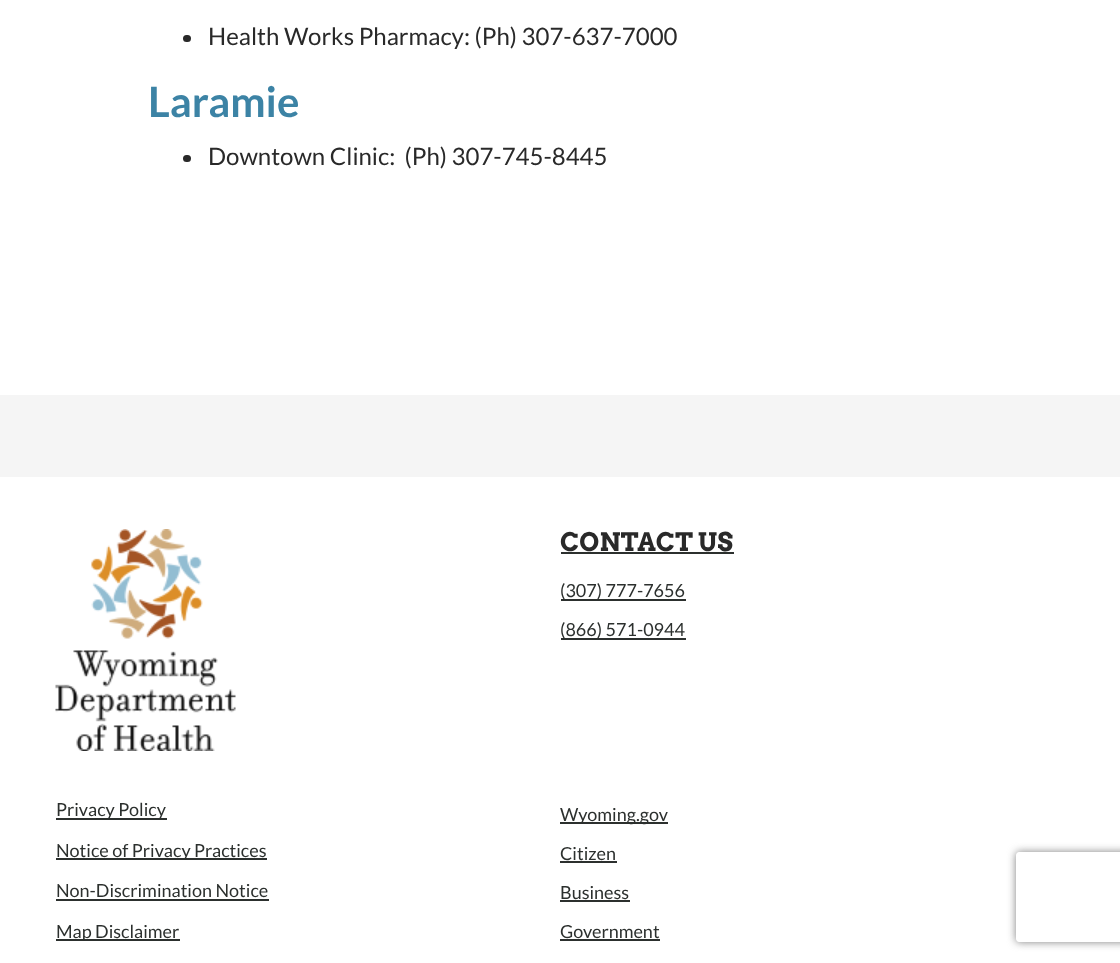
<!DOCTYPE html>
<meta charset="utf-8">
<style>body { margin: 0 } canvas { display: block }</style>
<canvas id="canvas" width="1120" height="963"></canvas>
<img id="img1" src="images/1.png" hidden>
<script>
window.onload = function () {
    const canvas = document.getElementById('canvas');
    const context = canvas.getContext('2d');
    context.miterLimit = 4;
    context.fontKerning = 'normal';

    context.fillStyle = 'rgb(255, 255, 255)';
    context.fillRect(0, 0, 1120, 963);
    context.fillStyle = 'rgb(41, 41, 41)';
    context.beginPath();
    context.roundRect(183, 35, 8, 7, 3.5);
    context.fill();
    context.beginPath();
    context.roundRect(183, 155, 8, 7, 3.5);
    context.fill();
    context.fillStyle = 'rgb(245, 245, 245)';
    context.fillRect(0, 395, 1120, 82);
    context.drawImage(document.getElementById('img1'), 55, 529, 181, 222);
    context.fillStyle = 'rgb(44, 48, 46)';
    context.fillRect(561, 552, 173, 2);
    context.fillRect(561, 599, 125, 2);
    context.fillRect(561, 638, 125, 2);
    context.fillRect(56, 818, 111, 2);
    context.fillRect(56, 858, 211, 2);
    context.fillRect(56, 899, 213, 2);
    context.fillRect(56, 939, 124, 2);
    context.fillRect(560, 822, 108, 2);
    context.fillRect(560, 861, 57, 2);
    context.fillRect(560, 900, 70, 2);
    context.fillRect(560, 939, 100, 2);
    context.save();
    context.beginPath();
    context.moveTo(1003, 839);
    context.lineTo(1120, 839);
    context.lineTo(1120, 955);
    context.lineTo(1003, 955);
    context.closePath();
    context.moveTo(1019, 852);
    context.lineTo(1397, 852);
    context.bezierCurveTo(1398.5, 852, 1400, 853.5, 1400, 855);
    context.lineTo(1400, 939);
    context.bezierCurveTo(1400, 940.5, 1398.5, 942, 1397, 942);
    context.lineTo(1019, 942);
    context.bezierCurveTo(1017.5, 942, 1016, 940.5, 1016, 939);
    context.lineTo(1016, 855);
    context.bezierCurveTo(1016, 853.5, 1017.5, 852, 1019, 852);
    context.closePath();
    context.clip('evenodd');
    context.fillStyle = 'rgb(128, 128, 128)';
    context.filter = 'blur(4px)';
    context.beginPath();
    context.roundRect(1016, 852, 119, 90, 3);
    context.fill();
    context.filter = 'none';
    context.restore();
    context.font = '24px Lato';
    context.fillStyle = 'rgb(41, 41, 41)';
    context.fillText('Health Works Pharmacy: (Ph) 307-637-7000', 208, 45);
    context.font = 'bold 42px Lato';
    context.fillStyle = 'rgb(60, 131, 165)';
    context.fillText('Laramie', 148, 117);
    context.font = '24px Lato';
    context.fillStyle = 'rgb(41, 41, 41)';
    context.fillText('Downtown Clinic:  (Ph) 307-745-8445', 208, 165);
    context.font = 'bold 25.5px Arvo';
    context.fillText('CONTACT US', 560, 551);
    context.font = '18px Lato';
    context.fillStyle = 'rgb(44, 48, 46)';
    context.fillText('(307) 777-7656', 560, 597);
    context.fillText('(866) 571-0944', 560, 636);
    context.fillText('Privacy Policy', 56, 816);
    context.fillText('Notice of Privacy Practices', 56, 857);
    context.fillText('Non-Discrimination Notice', 56, 897);
    context.fillText('Map Disclaimer', 56, 938);
    context.fillText('Wyoming.gov', 560, 821);
    context.fillText('Citizen', 560, 860);
    context.fillText('Business', 560, 899);
    context.fillText('Government', 560, 938);
};
</script>
